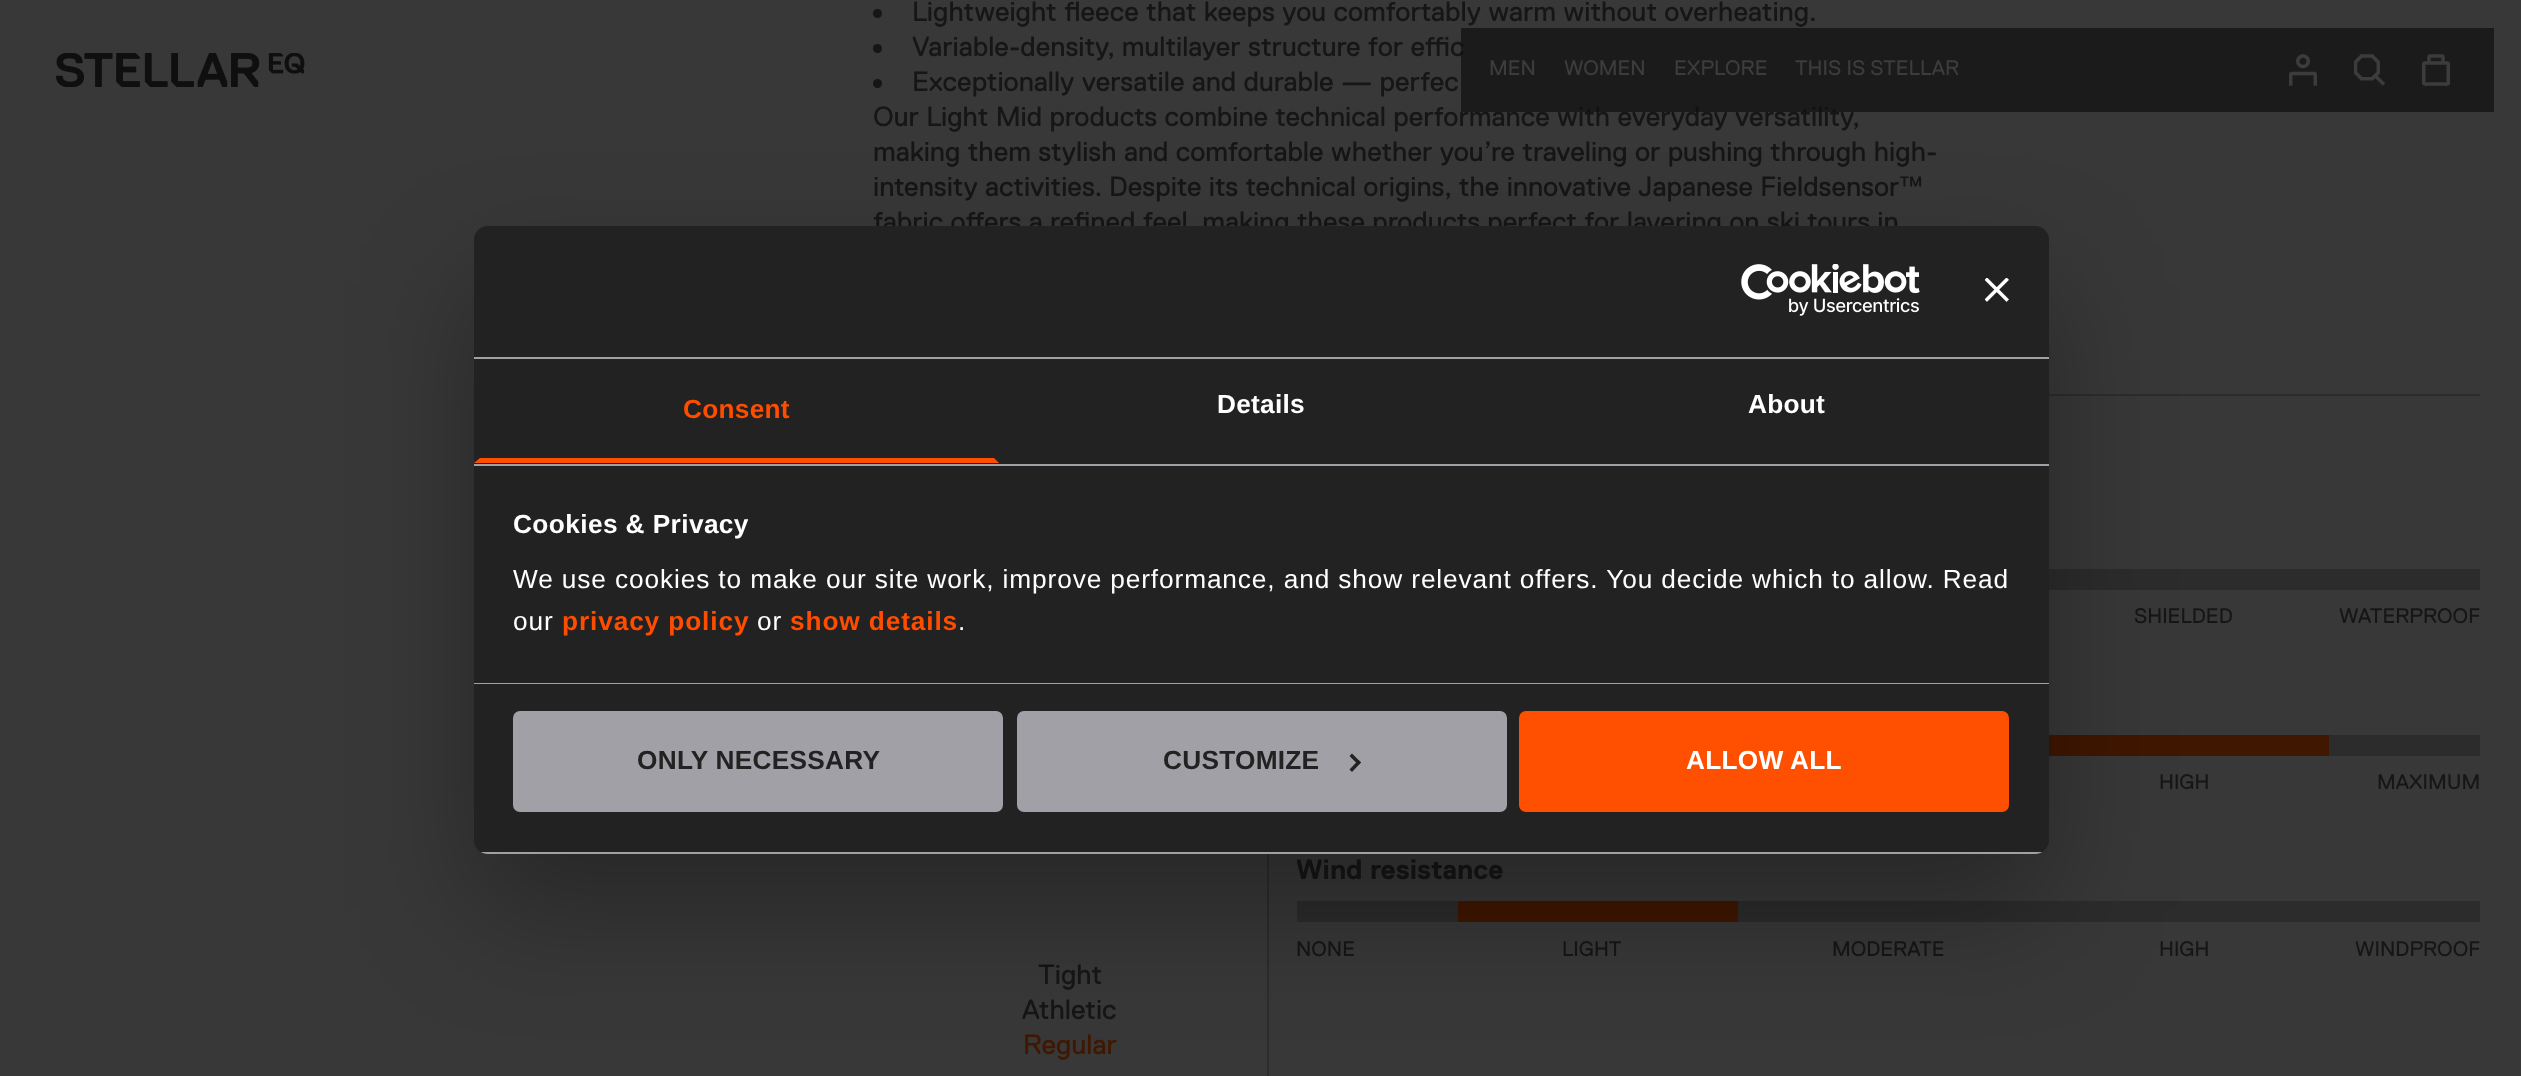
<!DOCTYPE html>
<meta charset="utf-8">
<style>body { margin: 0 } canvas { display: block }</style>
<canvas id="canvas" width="2521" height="1076"></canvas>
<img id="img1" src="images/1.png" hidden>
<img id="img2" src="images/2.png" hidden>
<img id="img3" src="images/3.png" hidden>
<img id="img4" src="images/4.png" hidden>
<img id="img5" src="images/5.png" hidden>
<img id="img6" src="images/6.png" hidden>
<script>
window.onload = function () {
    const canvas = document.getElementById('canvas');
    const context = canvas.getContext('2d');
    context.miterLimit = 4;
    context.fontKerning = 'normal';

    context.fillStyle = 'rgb(56, 56, 56)';
    context.fillRect(0, 0, 2521, 1076);
    context.fillStyle = 'rgb(44, 44, 44)';
    context.fillRect(2049, 394, 431, 2);
    context.fillStyle = 'rgb(22, 22, 22)';
    context.beginPath();
    context.arc(877.5, 13.5, 4.5, 0, 2 * Math.PI);
    context.fill();
    context.beginPath();
    context.arc(877.5, 48.5, 4.5, 0, 2 * Math.PI);
    context.fill();
    context.beginPath();
    context.arc(877.5, 83.5, 4.5, 0, 2 * Math.PI);
    context.fill();
    context.fillStyle = 'rgb(44, 44, 44)';
    context.fillRect(2049, 569, 431, 21);
    context.fillRect(2329, 735, 151, 21);
    context.fillStyle = 'rgb(64, 23, 0)';
    context.fillRect(2049, 735, 280, 21);
    context.fillStyle = 'rgb(44, 44, 44)';
    context.fillRect(1297, 901, 1183, 21);
    context.fillStyle = 'rgb(64, 23, 0)';
    context.fillRect(1458, 901, 280, 21);
    context.fillStyle = 'rgb(44, 44, 44)';
    context.fillRect(1267, 854, 2, 222);
    context.drawImage(document.getElementById('img1'), 56, 53, 249, 34);
    context.fillStyle = 'rgb(27, 27, 27)';
    context.fillRect(2273, 28, 221, 84);
    context.drawImage(document.getElementById('img2'), 2289, 54, 28, 32);
    context.drawImage(document.getElementById('img3'), 2354, 54, 31, 32);
    context.drawImage(document.getElementById('img4'), 2422, 54, 28, 32);
    context.font = '28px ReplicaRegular';
    context.fillStyle = 'rgb(22, 22, 22)';
    context.fillText('Lightweight fleece that keeps you comfortably warm without overheating.', 912, 21);
    context.fillText('Variable-density, multilayer structure for effic', 912, 56);
    context.fillText('Exceptionally versatile and durable — perfec', 912, 91);
    context.fillText('Our Light Mid products combine technical performance with everyday versatility,', 873, 126);
    context.fillText('making them stylish and comfortable whether you’re traveling or pushing through high-', 873, 161);
    context.fillText('intensity activities. Despite its technical origins, the innovative Japanese Fieldsensor™', 873, 196);
    context.fillText('fabric offers a refined feel, making these products perfect for layering on ski tours in', 873, 231);
    context.font = '21px ReplicaRegular';
    context.fillText('SHIELDED', 2134, 623);
    context.fillText('WATERPROOF', 2339, 623);
    context.fillText('HIGH', 2159, 789);
    context.fillText('MAXIMUM', 2377, 789);
    context.font = 'bold 28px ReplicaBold';
    context.fillText('Wind resistance', 1296, 879);
    context.font = '21px ReplicaRegular';
    context.fillText('NONE', 1296, 956);
    context.fillText('LIGHT', 1562, 956);
    context.fillText('MODERATE', 1832, 956);
    context.fillText('HIGH', 2159, 956);
    context.fillText('WINDPROOF', 2355, 956);
    context.font = '28px ReplicaRegular';
    context.fillText('Tight', 1038, 984);
    context.fillText('Athletic', 1022, 1019);
    context.fillStyle = 'rgb(64, 23, 0)';
    context.fillText('Regular', 1023, 1054);
    context.fillStyle = 'rgba(15, 15, 15, 0.7)';
    context.fillRect(1461, 28, 812, 84);
    context.font = '21px ReplicaRegular';
    context.fillStyle = 'rgb(60, 60, 60)';
    context.fillText('MEN', 1489, 75);
    context.fillText('WOMEN', 1564, 75);
    context.fillText('EXPLORE', 1674, 75);
    context.fillText('THIS IS STELLAR', 1795, 75);
    context.fillStyle = 'rgba(0, 0, 0, 0.3)';
    context.filter = 'blur(59.5px)';
    context.beginPath();
    context.roundRect(474, 282, 1575, 628, 14);
    context.fill();
    context.filter = 'none';
    context.fillStyle = 'rgb(34, 34, 34)';
    context.beginPath();
    context.roundRect(474, 226, 1575, 628, 14);
    context.fill();
    context.fillStyle = 'rgb(161, 160, 166)';
    context.fillRect(474, 357, 1575, 2);
    context.drawImage(document.getElementById('img5'), 1741, 264, 179, 52);
    context.drawImage(document.getElementById('img6'), 1985, 278, 24, 24);
    context.fillRect(474, 464, 1575, 2);
    context.fillStyle = 'rgb(255, 77, 0)';
    context.beginPath();
    context.moveTo(999, 463);
    context.lineTo(474, 463);
    context.lineTo(480, 458);
    context.lineTo(994, 458);
    context.closePath();
    context.fill();
    context.letterSpacing = '0.25px';
    context.font = 'bold 26.25px Liberation Sans';
    context.fillText('Consent', 683, 418);
    context.fillStyle = 'rgb(255, 255, 255)';
    context.fillText('Details', 1217, 413);
    context.fillText('About', 1748, 413);
    context.fillStyle = 'rgb(161, 160, 166)';
    context.fillRect(474, 683, 1575, 1);
    context.letterSpacing = '0.4px';
    context.fillStyle = 'rgb(255, 255, 255)';
    context.fillText('Cookies & Privacy', 513, 533);
    context.letterSpacing = '0.88px';
    context.font = '26.25px Liberation Sans';
    context.fillText('We use cookies to make our site work, improve performance, and show relevant offers. You decide which to allow. Read', 513, 588);
    context.fillText('our', 513, 630);
    context.font = 'bold 26.25px Liberation Sans';
    context.fillStyle = 'rgb(255, 77, 0)';
    context.fillText('privacy policy', 562, 630);
    context.font = '26.25px Liberation Sans';
    context.fillStyle = 'rgb(255, 255, 255)';
    context.fillText('or', 757, 630);
    context.font = 'bold 26.25px Liberation Sans';
    context.fillStyle = 'rgb(255, 77, 0)';
    context.fillText('show details', 790, 630);
    context.font = '26.25px Liberation Sans';
    context.fillStyle = 'rgb(255, 255, 255)';
    context.fillText('.', 958, 630);
    context.save();
    context.beginPath();
    context.roundRect(474, 226, 1575, 628, 14);
    context.clip();
    context.fillStyle = 'rgb(161, 160, 166)';
    context.fillRect(474, 852, 1575, 2);
    context.restore();
    context.fillStyle = 'rgb(161, 160, 166)';
    context.beginPath();
    context.roundRect(515, 713, 486, 97, 5);
    context.fill();
    context.strokeStyle = 'rgb(161, 160, 166)';
    context.lineWidth = 4;
    context.stroke();
    context.letterSpacing = '0.25px';
    context.font = 'bold 26.25px Liberation Sans';
    context.fillStyle = 'rgb(34, 34, 34)';
    context.fillText('ONLY NECESSARY', 637, 769);
    context.fillStyle = 'rgb(161, 160, 166)';
    context.beginPath();
    context.roundRect(1019, 713, 486, 97, 5);
    context.fill();
    context.stroke();
    context.fillStyle = 'rgb(34, 34, 34)';
    context.fillText('CUSTOMIZE', 1163, 769);
    context.beginPath();
    context.moveTo(1352, 753.5);
    context.lineTo(1361, 762.5);
    context.lineTo(1358.5, 765);
    context.lineTo(1349.5, 756);
    context.closePath();
    context.fill();
    context.beginPath();
    context.moveTo(1358.5, 760);
    context.lineTo(1361, 762.5);
    context.lineTo(1352, 772);
    context.lineTo(1349.5, 769.5);
    context.closePath();
    context.fill();
    context.fillStyle = 'rgb(255, 79, 0)';
    context.beginPath();
    context.roundRect(1521, 713, 486, 97, 5);
    context.fill();
    context.strokeStyle = 'rgb(255, 79, 0)';
    context.stroke();
    context.fillStyle = 'rgb(255, 255, 255)';
    context.fillText('ALLOW ALL', 1686, 769);
};
</script>
